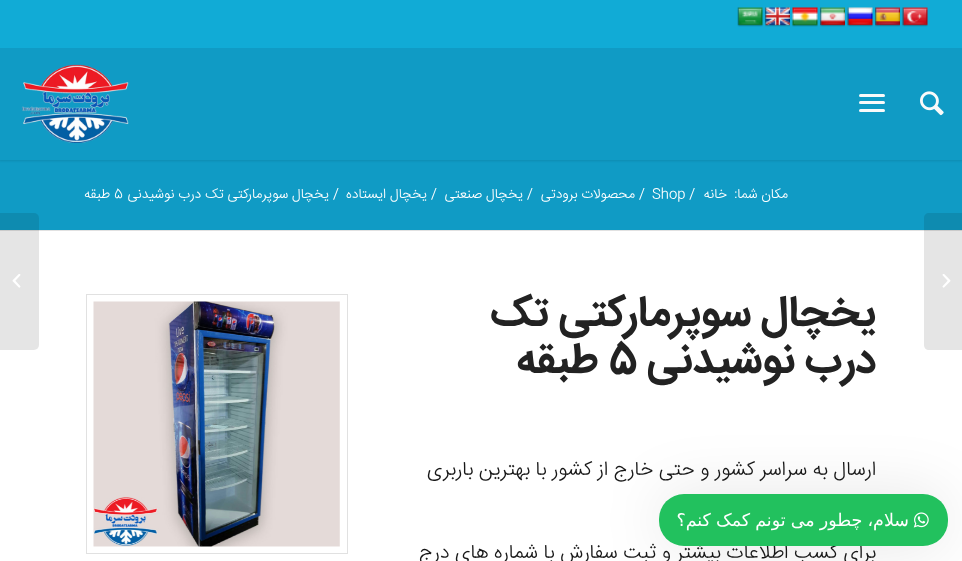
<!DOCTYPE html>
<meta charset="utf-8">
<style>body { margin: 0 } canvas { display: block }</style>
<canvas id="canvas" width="962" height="561"></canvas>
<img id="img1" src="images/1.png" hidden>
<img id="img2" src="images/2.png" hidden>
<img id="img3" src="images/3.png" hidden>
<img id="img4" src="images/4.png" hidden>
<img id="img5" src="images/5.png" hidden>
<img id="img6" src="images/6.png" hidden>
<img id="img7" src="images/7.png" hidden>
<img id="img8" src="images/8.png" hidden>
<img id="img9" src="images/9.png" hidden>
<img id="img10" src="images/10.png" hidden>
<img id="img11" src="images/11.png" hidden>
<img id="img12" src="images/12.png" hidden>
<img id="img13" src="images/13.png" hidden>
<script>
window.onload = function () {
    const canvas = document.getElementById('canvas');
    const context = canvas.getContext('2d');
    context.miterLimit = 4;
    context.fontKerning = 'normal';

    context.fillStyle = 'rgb(16, 155, 197)';
    context.fillRect(0, 0, 962, 561);
    context.fillStyle = 'rgba(0, 0, 0, 0.1)';
    context.filter = 'blur(1px)';
    context.beginPath();
    context.rect(-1, -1, 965, 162);
    context.fill();
    context.filter = 'none';
    context.fillStyle = 'rgb(17, 171, 214)';
    context.fillRect(0, 0, 962, 48);
    context.drawImage(document.getElementById('img1'), 902, 7, 26, 20);
    context.drawImage(document.getElementById('img2'), 875, 7, 25, 20);
    context.drawImage(document.getElementById('img3'), 847, 7, 26, 20);
    context.drawImage(document.getElementById('img4'), 820, 7, 25, 20);
    context.drawImage(document.getElementById('img5'), 792, 7, 26, 20);
    context.drawImage(document.getElementById('img6'), 765, 7, 25, 20);
    context.drawImage(document.getElementById('img7'), 737, 7, 26, 20);
    context.fillStyle = 'rgb(16, 155, 197)';
    context.fillRect(0, 48, 962, 112);
    context.drawImage(document.getElementById('img8'), 920, 91, 24, 25);
    context.fillStyle = 'rgb(250, 250, 250)';
    context.beginPath();
    context.roundRect(859, 101, 26, 3, 1.5);
    context.fill();
    context.beginPath();
    context.roundRect(859, 94, 26, 3, 1.5);
    context.fill();
    context.beginPath();
    context.roundRect(859, 109, 26, 3, 1.5);
    context.fill();
    context.drawImage(document.getElementById('img9'), 21, 64, 108, 79);
    context.fillStyle = 'rgb(255, 255, 255)';
    context.fillRect(0, 231, 962, 330);
    context.fillStyle = 'rgb(225, 225, 225)';
    context.fillRect(0, 230, 962, 1);
    context.fillStyle = 'rgba(0, 0, 0, 0.1)';
    context.beginPath();
    context.moveTo(929, 213);
    context.lineTo(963, 213);
    context.lineTo(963, 350);
    context.lineTo(929, 350);
    context.bezierCurveTo(926, 350, 924, 348, 924, 345);
    context.lineTo(924, 218);
    context.bezierCurveTo(924, 215, 926, 213, 929, 213);
    context.closePath();
    context.fill();
    context.drawImage(document.getElementById('img10'), 942, 274, 9, 14);
    context.strokeStyle = 'rgb(225, 225, 225)';
    context.strokeRect(86.5, 294.5, 261, 259);
    context.drawImage(document.getElementById('img11'), 93, 301, 247, 246);
    context.beginPath();
    context.roundRect(0, 213, 39, 137, [0, 5, 5, 0]);
    context.fill();
    context.drawImage(document.getElementById('img12'), 12, 274, 9, 14);
    context.filter = 'blur(31px)';
    context.beginPath();
    context.roundRect(659, 494, 289, 52, 25);
    context.fill();
    context.filter = 'none';
    context.direction = 'rtl';
    context.font = '300 13.75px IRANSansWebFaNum';
    context.fillStyle = 'rgb(255, 255, 255)';
    context.fillText('مکان شما:', 788, 198);
    context.fillText('خانه', 727, 198);
    context.direction = 'ltr';
    context.fillText('Shop /', 652, 198);
    context.fillText('/', 639, 198);
    context.direction = 'rtl';
    context.fillText('محصولات برودتی', 635, 198);
    context.direction = 'ltr';
    context.fillText('/', 527, 198);
    context.direction = 'rtl';
    context.fillText('یخچال صنعتی', 523, 198);
    context.direction = 'ltr';
    context.fillText('/', 431, 198);
    context.direction = 'rtl';
    context.fillText('یخچال ایستاده', 427, 198);
    context.direction = 'ltr';
    context.fillText('/', 333, 198);
    context.direction = 'rtl';
    context.fillText('یخچال سوپرمارکتی تک درب نوشیدنی', 329, 198);
    context.direction = 'ltr';
    context.fillText('5', 114, 198);
    context.direction = 'rtl';
    context.fillText('طبقه', 110, 198);
    context.font = 'bold 42.5px IRANSansWebFaNum';
    context.fillStyle = 'rgb(34, 34, 34)';
    context.fillText('یخچال سوپرمارکتی تک', 876, 325);
    context.fillText('درب نوشیدنی', 876, 372);
    context.direction = 'ltr';
    context.fillText('5', 609, 372);
    context.direction = 'rtl';
    context.fillText('طبقه', 598, 372);
    context.font = '300 20px IRANSansWebFaNum';
    context.fillStyle = 'rgb(23, 23, 23)';
    context.fillText('ارسال به سراسر کشور و حتی خارج از کشور با بهترین باربری', 876, 475);
    context.fillText('برای کسب اطلاعات بیشتر و ثبت سفارش با شماره های درج', 876, 558);
    context.fillStyle = 'rgb(34, 193, 94)';
    context.beginPath();
    context.roundRect(659, 494, 289, 52, 25);
    context.fill();
    context.drawImage(document.getElementById('img13'), 913, 512, 16, 16);
    context.wordSpacing = '-0.5px';
    context.font = '17.5px DejaVu Sans';
    context.fillStyle = 'rgb(255, 255, 255)';
    context.fillText('سلام، چطور می تونم کمک کنم؟', 909, 526);
};
</script>
